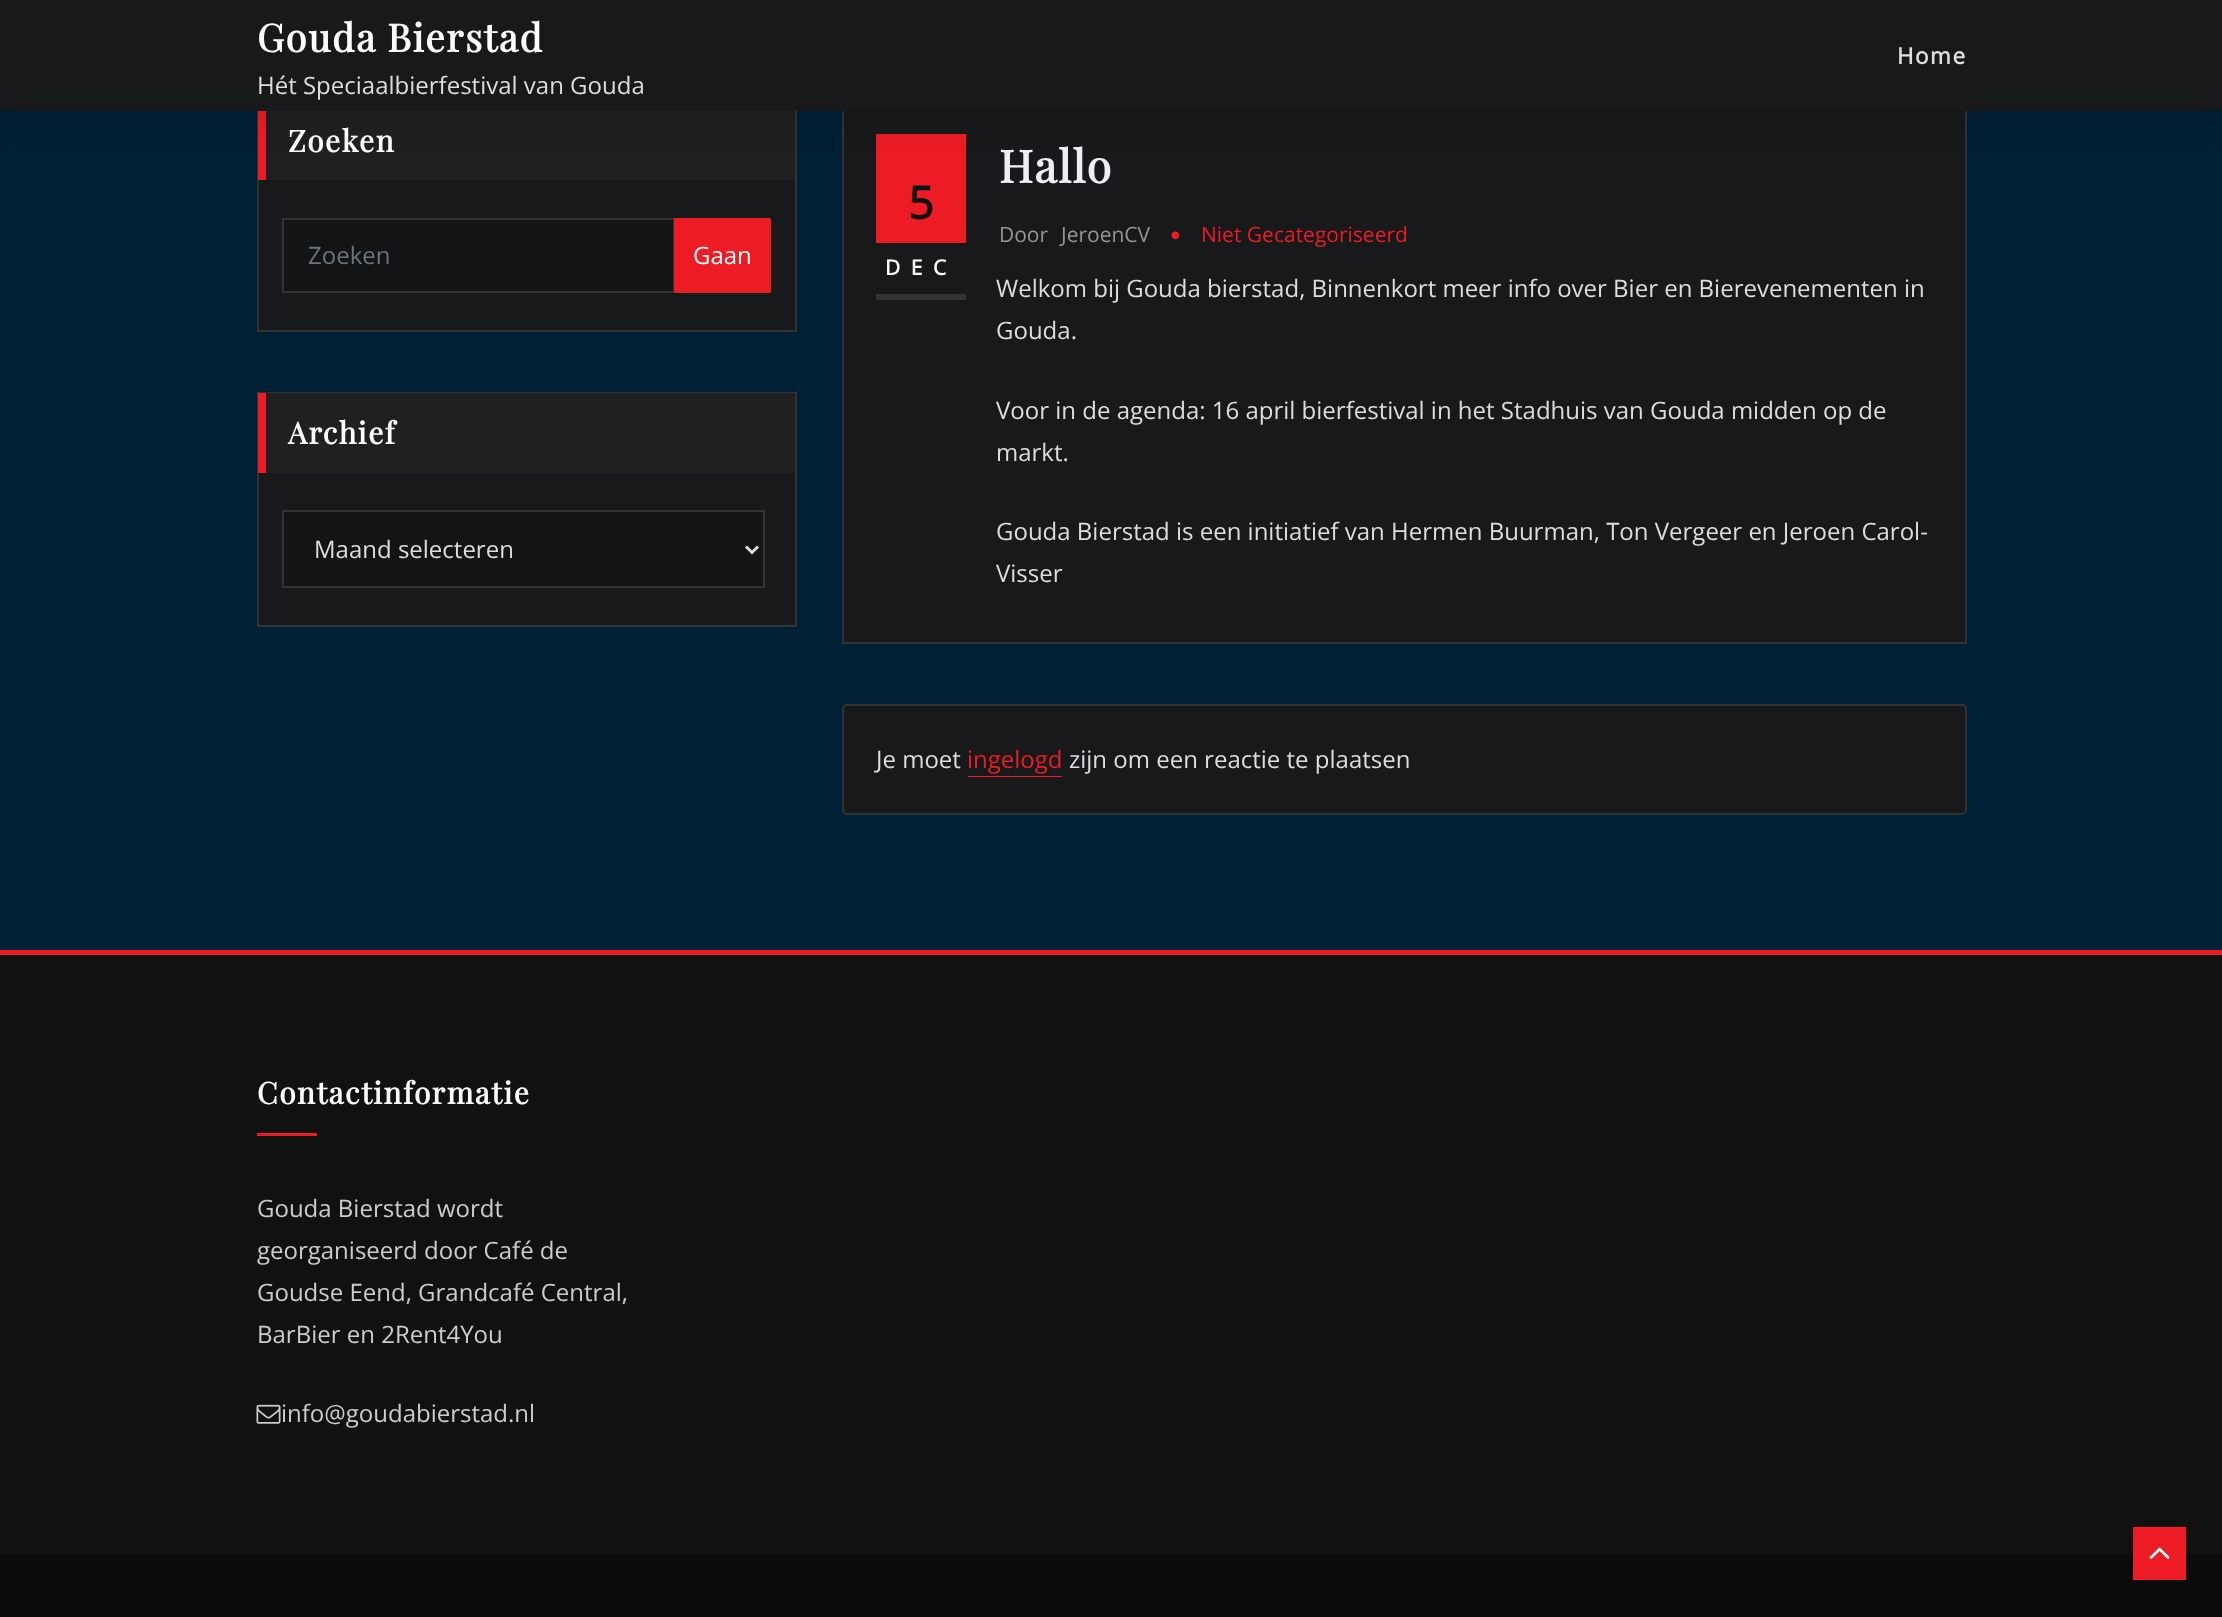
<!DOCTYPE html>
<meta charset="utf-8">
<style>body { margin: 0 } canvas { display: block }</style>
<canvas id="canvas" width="2222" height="1617"></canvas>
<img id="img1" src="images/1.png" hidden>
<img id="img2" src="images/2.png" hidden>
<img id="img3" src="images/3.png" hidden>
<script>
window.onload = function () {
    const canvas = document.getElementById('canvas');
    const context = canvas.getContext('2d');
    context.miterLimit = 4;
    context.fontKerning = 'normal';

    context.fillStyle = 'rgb(0, 32, 53)';
    context.fillRect(0, 0, 2222, 1617);
    context.fillStyle = 'rgb(24, 25, 27)';
    context.fillRect(259, 180, 536, 150);
    context.strokeStyle = 'rgb(51, 51, 51)';
    context.lineWidth = 2;
    context.strokeRect(258, 100, 538, 231);
    context.fillStyle = 'rgb(32, 32, 32)';
    context.fillRect(266, 111, 529, 69);
    context.fillStyle = 'rgb(237, 28, 36)';
    context.fillRect(258, 111, 8, 69);
    context.fillStyle = 'rgb(24, 25, 27)';
    context.fillRect(844, 111, 1121, 531);
    context.strokeRect(843, 100, 1123, 543);
    context.fillStyle = 'rgb(237, 28, 36)';
    context.fillRect(876, 134, 90, 109);
    context.fillStyle = 'rgba(0, 0, 0, 0.1)';
    context.filter = 'blur(15px)';
    context.beginPath();
    context.rect(0, 12, 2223, 111);
    context.fill();
    context.filter = 'none';
    context.fillStyle = 'rgb(24, 25, 27)';
    context.fillRect(0, 0, 2222, 111);
    context.fillStyle = 'rgb(19, 20, 22)';
    context.fillRect(284, 221, 389, 70);
    context.fillStyle = 'rgb(18, 19, 20)';
    context.fillRect(284, 220, 390, 1);
    context.strokeRect(283, 219, 391, 73);
    context.fillStyle = 'rgb(237, 28, 36)';
    context.beginPath();
    context.roundRect(675, 219, 95, 73, [0, 0.5, 0.5, 0]);
    context.fill();
    context.strokeStyle = 'rgb(237, 28, 36)';
    context.stroke();
    context.fillStyle = 'rgb(24, 25, 27)';
    context.fillRect(259, 473, 536, 152);
    context.strokeStyle = 'rgb(51, 51, 51)';
    context.strokeRect(258, 393, 538, 233);
    context.fillStyle = 'rgb(32, 32, 32)';
    context.fillRect(266, 393, 529, 80);
    context.fillStyle = 'rgb(237, 28, 36)';
    context.fillRect(258, 393, 8, 80);
    context.fillStyle = 'rgb(19, 20, 22)';
    context.fillRect(284, 514, 479, 72);
    context.fillStyle = 'rgb(18, 19, 20)';
    context.fillRect(284, 512, 480, 2);
    context.strokeRect(283, 511, 481, 76);
    context.beginPath();
    context.moveTo(746, 546.5);
    context.lineTo(752, 552.5);
    context.lineTo(758, 546.5);
    context.strokeStyle = 'rgb(221, 221, 221)';
    context.lineWidth = 3;
    context.stroke();
    context.fillStyle = 'rgb(51, 51, 51)';
    context.fillRect(876, 294, 90, 6);
    context.drawImage(document.getElementById('img1'), 1171, 231, 9, 9);
    context.fillStyle = 'rgb(24, 25, 27)';
    context.beginPath();
    context.roundRect(843, 705, 1123, 109, 4);
    context.fill();
    context.strokeStyle = 'rgb(51, 51, 51)';
    context.lineWidth = 2;
    context.stroke();
    context.fillStyle = 'rgb(237, 28, 36)';
    context.fillRect(968, 776, 94, 1);
    context.fillStyle = 'rgb(17, 17, 17)';
    context.fillRect(0, 955, 2222, 599);
    context.fillStyle = 'rgb(237, 28, 36)';
    context.fillRect(0, 950, 2222, 5);
    context.fillRect(257, 1133, 60, 3);
    context.drawImage(document.getElementById('img2'), 256, 1404, 25, 20);
    context.fillStyle = 'rgb(11, 11, 11)';
    context.fillRect(0, 1554, 2222, 63);
    context.fillStyle = 'rgb(237, 28, 36)';
    context.fillRect(2133, 1527, 53, 53);
    context.drawImage(document.getElementById('img3'), 2149, 1547, 21, 12);
    context.letterSpacing = '1.5px';
    context.font = 'bold 38.5px Playfair Display';
    context.fillStyle = 'rgb(255, 255, 255)';
    context.fillText('Gouda Bierstad', 257, 52);
    context.letterSpacing = '0px';
    context.font = '24px Open Sans';
    context.fillStyle = 'rgb(221, 221, 221)';
    context.fillText('Hét Speciaalbierfestival van Gouda', 257, 94);
    context.letterSpacing = '1.5px';
    context.font = 'bold 22.5px Open Sans';
    context.fillText('Home', 1897, 64);
    context.font = 'bold 30px Playfair Display';
    context.fillStyle = 'rgb(255, 255, 255)';
    context.fillText('Zoeken', 288, 152);
    context.letterSpacing = '0px';
    context.font = '24px Open Sans';
    context.fillStyle = 'rgb(108, 117, 125)';
    context.fillText('Zoeken', 308, 264);
    context.fillStyle = 'rgb(255, 255, 255)';
    context.fillText('Gaan', 693, 264);
    context.letterSpacing = '1.5px';
    context.font = 'bold 30px Playfair Display';
    context.fillText('Archief', 288, 444);
    context.letterSpacing = '0px';
    context.font = '24px Open Sans';
    context.fillStyle = 'rgb(221, 221, 221)';
    context.fillText('Maand selecteren', 314, 558);
    context.font = 'bold 45px Open Sans';
    context.fillStyle = 'rgb(17, 17, 17)';
    context.fillText('5', 908, 219);
    context.letterSpacing = '10.5px';
    context.font = 'bold 21px Open Sans';
    context.fillStyle = 'rgb(255, 255, 255)';
    context.fillText('DEC', 885, 275);
    context.letterSpacing = '1.5px';
    context.font = 'bold 45px Playfair Display';
    context.fillStyle = 'rgb(236, 239, 243)';
    context.fillText('Hallo', 999, 183);
    context.letterSpacing = '0px';
    context.font = '21px Open Sans';
    context.fillStyle = 'rgb(149, 149, 149)';
    context.fillText('Door', 999, 242);
    context.fillText('JeroenCV', 1061, 242);
    context.fillStyle = 'rgb(237, 28, 36)';
    context.fillText('Niet Gecategoriseerd', 1201, 242);
    context.font = '24px Open Sans';
    context.fillStyle = 'rgb(221, 221, 221)';
    context.fillText('Welkom bij Gouda bierstad, Binnenkort meer info over Bier en Bierevenementen in', 996, 297);
    context.fillText('Gouda.', 996, 339);
    context.fillText('Voor in de agenda: 16 april bierfestival in het Stadhuis van Gouda midden op de', 996, 419);
    context.fillText('markt.', 996, 461);
    context.fillText('Gouda Bierstad is een initiatief van Hermen Buurman, Ton Vergeer en Jeroen Carol-', 996, 540);
    context.fillText('Visser', 996, 582);
    context.fillText('Je moet', 876, 768);
    context.fillStyle = 'rgb(237, 28, 36)';
    context.fillText('ingelogd', 967, 768);
    context.fillStyle = 'rgb(221, 221, 221)';
    context.fillText('zijn om een reactie te plaatsen', 1069, 768);
    context.letterSpacing = '1.5px';
    context.font = 'bold 30px Playfair Display';
    context.fillStyle = 'rgb(255, 255, 255)';
    context.fillText('Contactinformatie', 257, 1104);
    context.letterSpacing = '0px';
    context.font = '24px Open Sans';
    context.fillStyle = 'rgb(204, 204, 204)';
    context.fillText('Gouda Bierstad wordt', 257, 1217);
    context.fillText('georganiseerd door Café de', 257, 1259);
    context.fillText('Goudse Eend, Grandcafé Central,', 257, 1301);
    context.fillText('BarBier en 2Rent4You', 257, 1343);
    context.fillText('info@goudabierstad.nl', 281, 1422);
};
</script>
